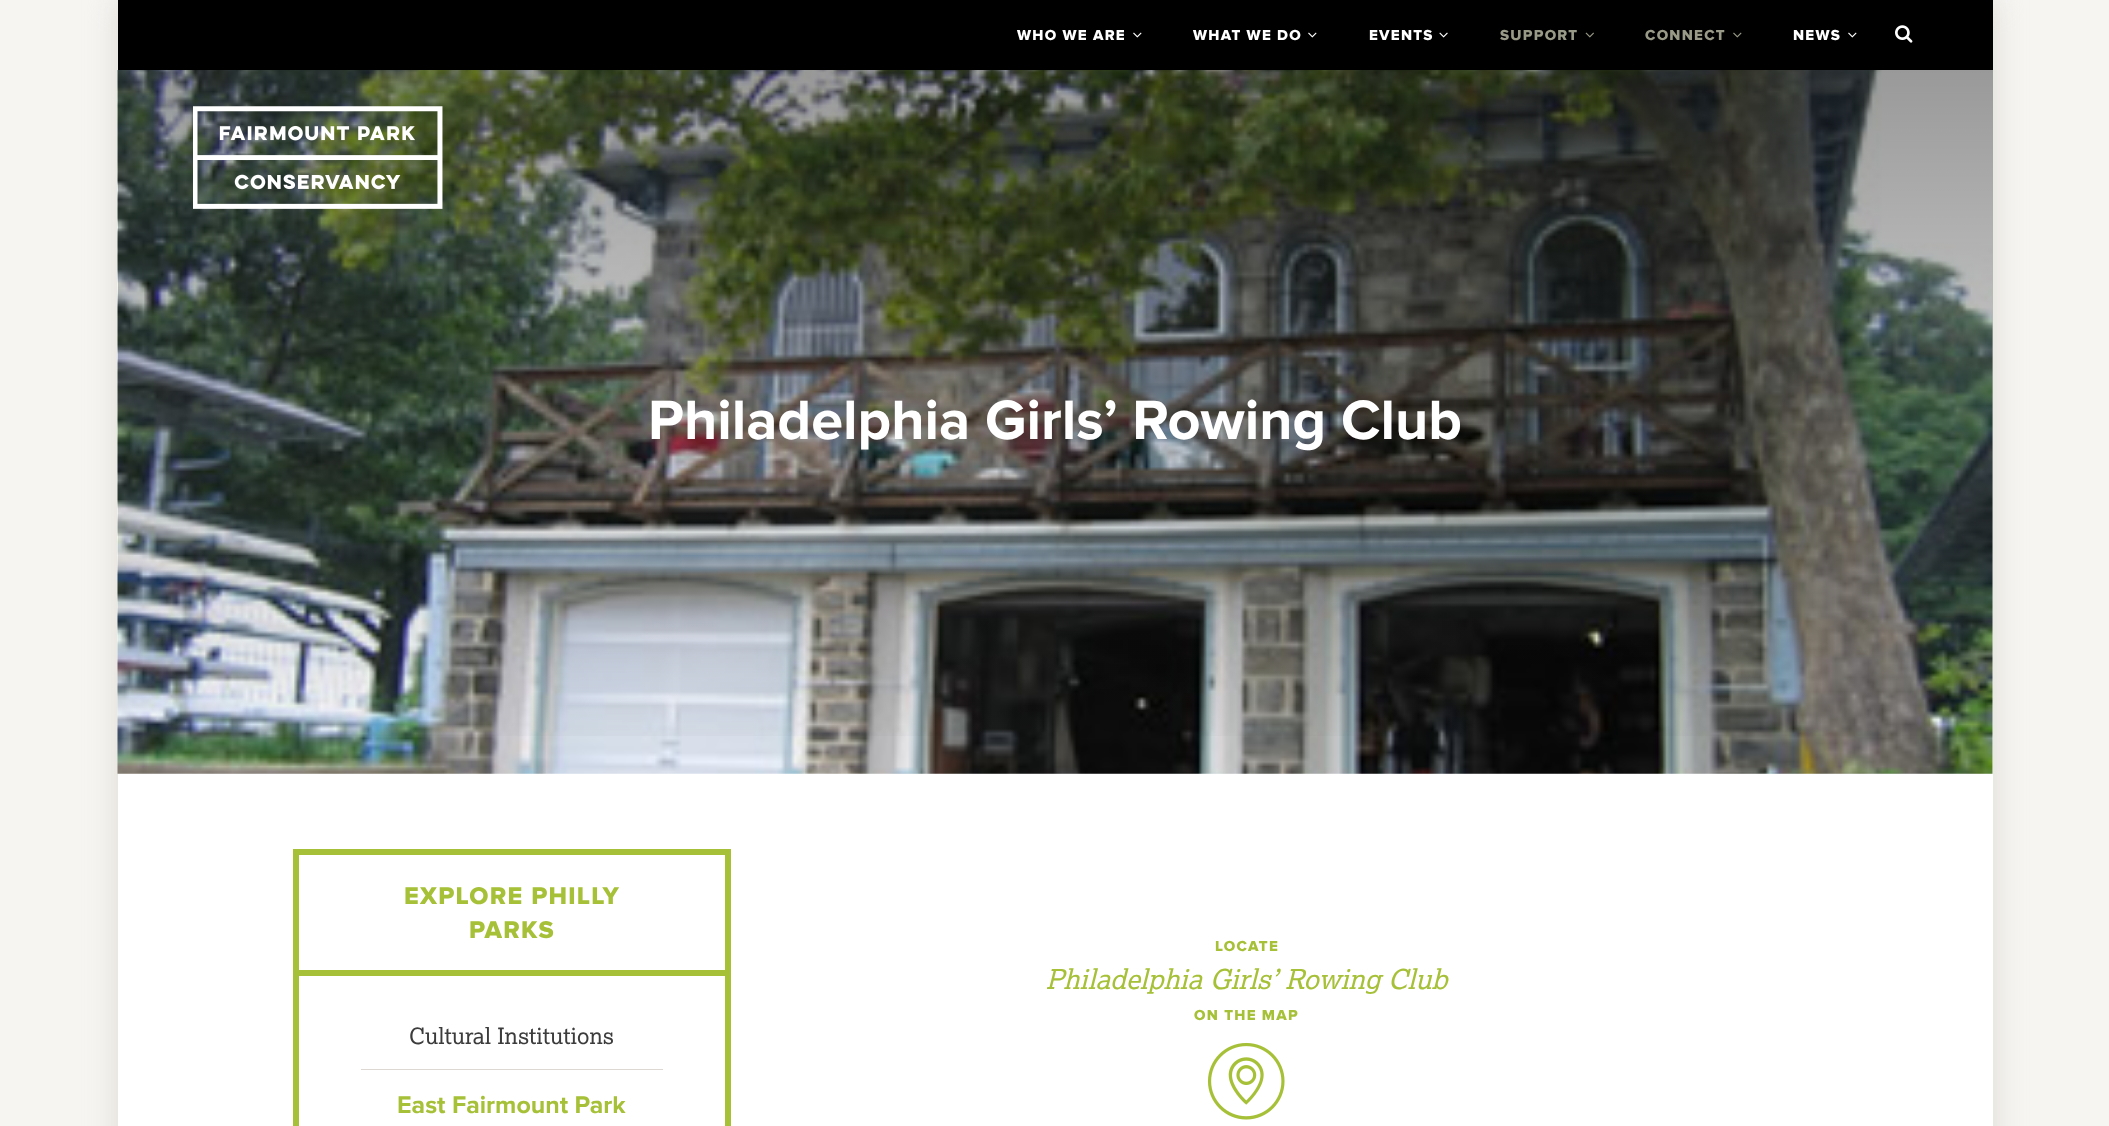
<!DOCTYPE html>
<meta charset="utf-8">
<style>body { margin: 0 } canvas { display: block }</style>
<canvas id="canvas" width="2109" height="1126"></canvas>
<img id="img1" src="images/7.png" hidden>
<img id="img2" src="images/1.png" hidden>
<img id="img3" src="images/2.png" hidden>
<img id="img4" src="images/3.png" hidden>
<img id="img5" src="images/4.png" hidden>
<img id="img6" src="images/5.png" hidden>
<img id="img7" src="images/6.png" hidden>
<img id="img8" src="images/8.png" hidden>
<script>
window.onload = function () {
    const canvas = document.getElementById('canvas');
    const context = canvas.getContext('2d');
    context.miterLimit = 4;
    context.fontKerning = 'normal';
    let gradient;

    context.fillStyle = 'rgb(246, 245, 242)';
    context.fillRect(0, 0, 2109, 1126);
    context.fillStyle = 'rgb(221, 217, 210)';
    context.filter = 'blur(15.5px)';
    context.beginPath();
    context.rect(118, 0, 1875, 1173);
    context.fill();
    context.filter = 'none';
    context.fillStyle = 'rgb(255, 255, 255)';
    context.fillRect(118, 70, 1875, 1056);
    context.fillStyle = 'rgb(0, 0, 0)';
    context.fillRect(118, 0, 1875, 70);
    context.drawImage(document.getElementById('img1'), 117, 70, 1876, 704);
    gradient = context.createLinearGradient(1055, 70, 1055, 774);
    gradient.addColorStop(0, 'rgba(0, 0, 0, 0.4)');
    gradient.addColorStop(1, 'rgba(0, 0, 0, 0)');
    context.fillStyle = gradient;
    context.fillRect(118, 70, 1875, 666);
    context.drawImage(document.getElementById('img2'), 193, 106, 250, 103);
    context.drawImage(document.getElementById('img3'), 1133, 32, 9, 6);
    context.drawImage(document.getElementById('img3'), 1308, 32, 9, 6);
    context.drawImage(document.getElementById('img4'), 1439, 32, 9, 6);
    context.drawImage(document.getElementById('img5'), 1585, 32, 9, 6);
    context.drawImage(document.getElementById('img6'), 1733, 32, 9, 6);
    context.drawImage(document.getElementById('img3'), 1848, 32, 9, 6);
    context.drawImage(document.getElementById('img7'), 1895, 25, 18, 18);
    context.strokeStyle = 'rgb(166, 192, 56)';
    context.lineWidth = 6;
    context.strokeRect(296, 852, 432, 121);
    context.fillStyle = 'rgb(166, 192, 56)';
    context.fillRect(725, 976, 6, 150);
    context.fillRect(293, 976, 6, 150);
    context.fillStyle = 'rgb(221, 217, 210)';
    context.fillRect(361, 1069, 302, 1);
    context.drawImage(document.getElementById('img8'), 1207, 1042, 78, 78);
    context.letterSpacing = '1.25px';
    context.font = '800 15px Proxima Nova';
    context.fillStyle = 'rgb(255, 255, 255)';
    context.fillText('WHO WE ARE', 1017, 40);
    context.fillText('WHAT WE DO', 1193, 40);
    context.fillText('EVENTS', 1369, 40);
    context.fillStyle = 'rgb(153, 153, 135)';
    context.fillText('SUPPORT', 1500, 40);
    context.fillText('CONNECT', 1645, 40);
    context.fillStyle = 'rgb(255, 255, 255)';
    context.fillText('NEWS', 1793, 40);
    context.letterSpacing = '0px';
    context.font = 'bold 57.5px Proxima Nova';
    context.fillText('Philadelphia Girls’ Rowing Club', 648, 439);
    context.letterSpacing = '1.25px';
    context.font = '800 25px Proxima Nova';
    context.fillStyle = 'rgb(166, 192, 56)';
    context.fillText('EXPLORE PHILLY', 404, 904);
    context.fillText('PARKS', 469, 938);
    context.letterSpacing = '0px';
    context.font = '22.5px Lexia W';
    context.fillStyle = 'rgb(60, 60, 60)';
    context.fillText('Cultural Institutions', 409, 1044);
    context.font = 'bold 25px Proxima Nova';
    context.fillStyle = 'rgb(166, 192, 56)';
    context.fillText('East Fairmount Park', 397, 1113);
    context.letterSpacing = '1.25px';
    context.font = '800 15px Proxima Nova';
    context.fillText('LOCATE', 1215, 951);
    context.letterSpacing = '0px';
    context.font = 'italic 27.5px Lexia W';
    context.fillText('Philadelphia Girls’ Rowing Club', 1046, 989);
    context.letterSpacing = '1.25px';
    context.font = '800 15px Proxima Nova';
    context.fillText('ON THE MAP', 1194, 1020);
};
</script>
